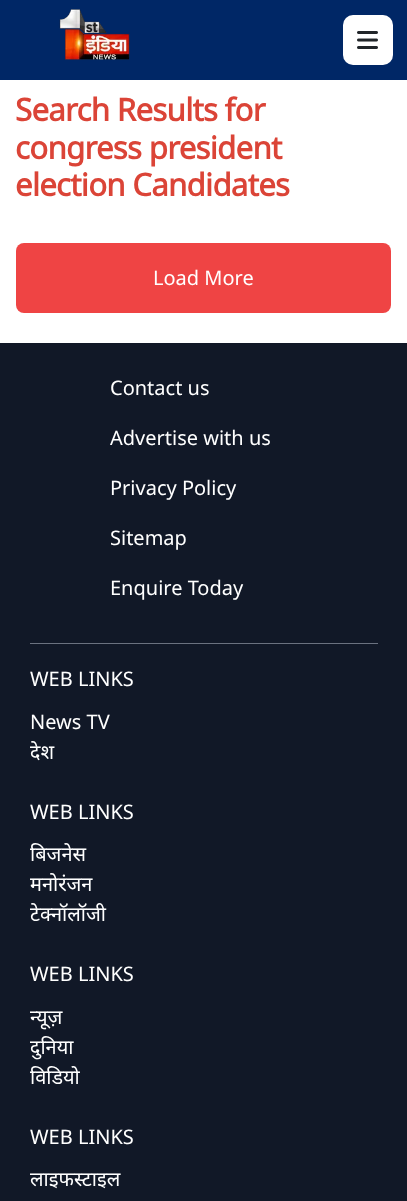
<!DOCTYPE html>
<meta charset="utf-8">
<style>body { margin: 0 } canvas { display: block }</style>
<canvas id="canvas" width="407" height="1201"></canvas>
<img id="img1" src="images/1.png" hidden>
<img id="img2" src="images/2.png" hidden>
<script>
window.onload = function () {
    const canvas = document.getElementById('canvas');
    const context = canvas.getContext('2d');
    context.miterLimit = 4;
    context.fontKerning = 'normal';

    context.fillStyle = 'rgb(255, 255, 255)';
    context.fillRect(0, 0, 407, 1201);
    context.fillStyle = 'rgb(0, 39, 102)';
    context.fillRect(0, 0, 407, 80);
    context.drawImage(document.getElementById('img1'), 59, 9, 71, 51);
    context.fillStyle = 'rgb(255, 255, 255)';
    context.beginPath();
    context.roundRect(343, 15, 50, 50, 10);
    context.fill();
    context.drawImage(document.getElementById('img2'), 357, 31, 21, 18);
    context.fillStyle = 'rgb(239, 68, 68)';
    context.beginPath();
    context.roundRect(16, 243, 375, 70, 8);
    context.fill();
    context.fillStyle = 'rgb(17, 24, 39)';
    context.fillRect(0, 343, 407, 858);
    context.fillStyle = 'rgb(107, 114, 128)';
    context.fillRect(30, 643, 348, 1);
    context.letterSpacing = '-0.75px';
    context.font = 'bold 31.25px Noto Sans';
    context.fillStyle = 'rgb(219, 68, 55)';
    context.fillText('Search Results for', 15, 121);
    context.fillText('congress president', 15, 159);
    context.fillText('election Candidates', 15, 196);
    context.letterSpacing = '0px';
    context.font = '20px Noto Sans';
    context.fillStyle = 'rgb(255, 255, 255)';
    context.fillText('Load More', 153, 285);
    context.fillText('Contact us', 110, 395);
    context.fillText('Advertise with us', 110, 445);
    context.fillText('Privacy Policy', 110, 495);
    context.fillText('Sitemap', 110, 545);
    context.fillText('Enquire Today', 110, 595);
    context.fillText('WEB LINKS', 30, 686);
    context.fillText('News TV', 30, 729);
    context.fillText('देश', 30, 759);
    context.fillText('WEB LINKS', 30, 819);
    context.fillText('बिजनेस', 30, 861);
    context.fillText('मनोरंजन', 30, 891);
    context.fillText('टेक्नॉलॉजी', 30, 921);
    context.fillText('WEB LINKS', 30, 981);
    context.fillText('न्यूज़', 30, 1024);
    context.fillText('दुनिया', 30, 1054);
    context.fillText('विडियो', 30, 1084);
    context.fillText('WEB LINKS', 30, 1144);
    context.fillText('लाइफस्टाइल', 30, 1186);
};
</script>
